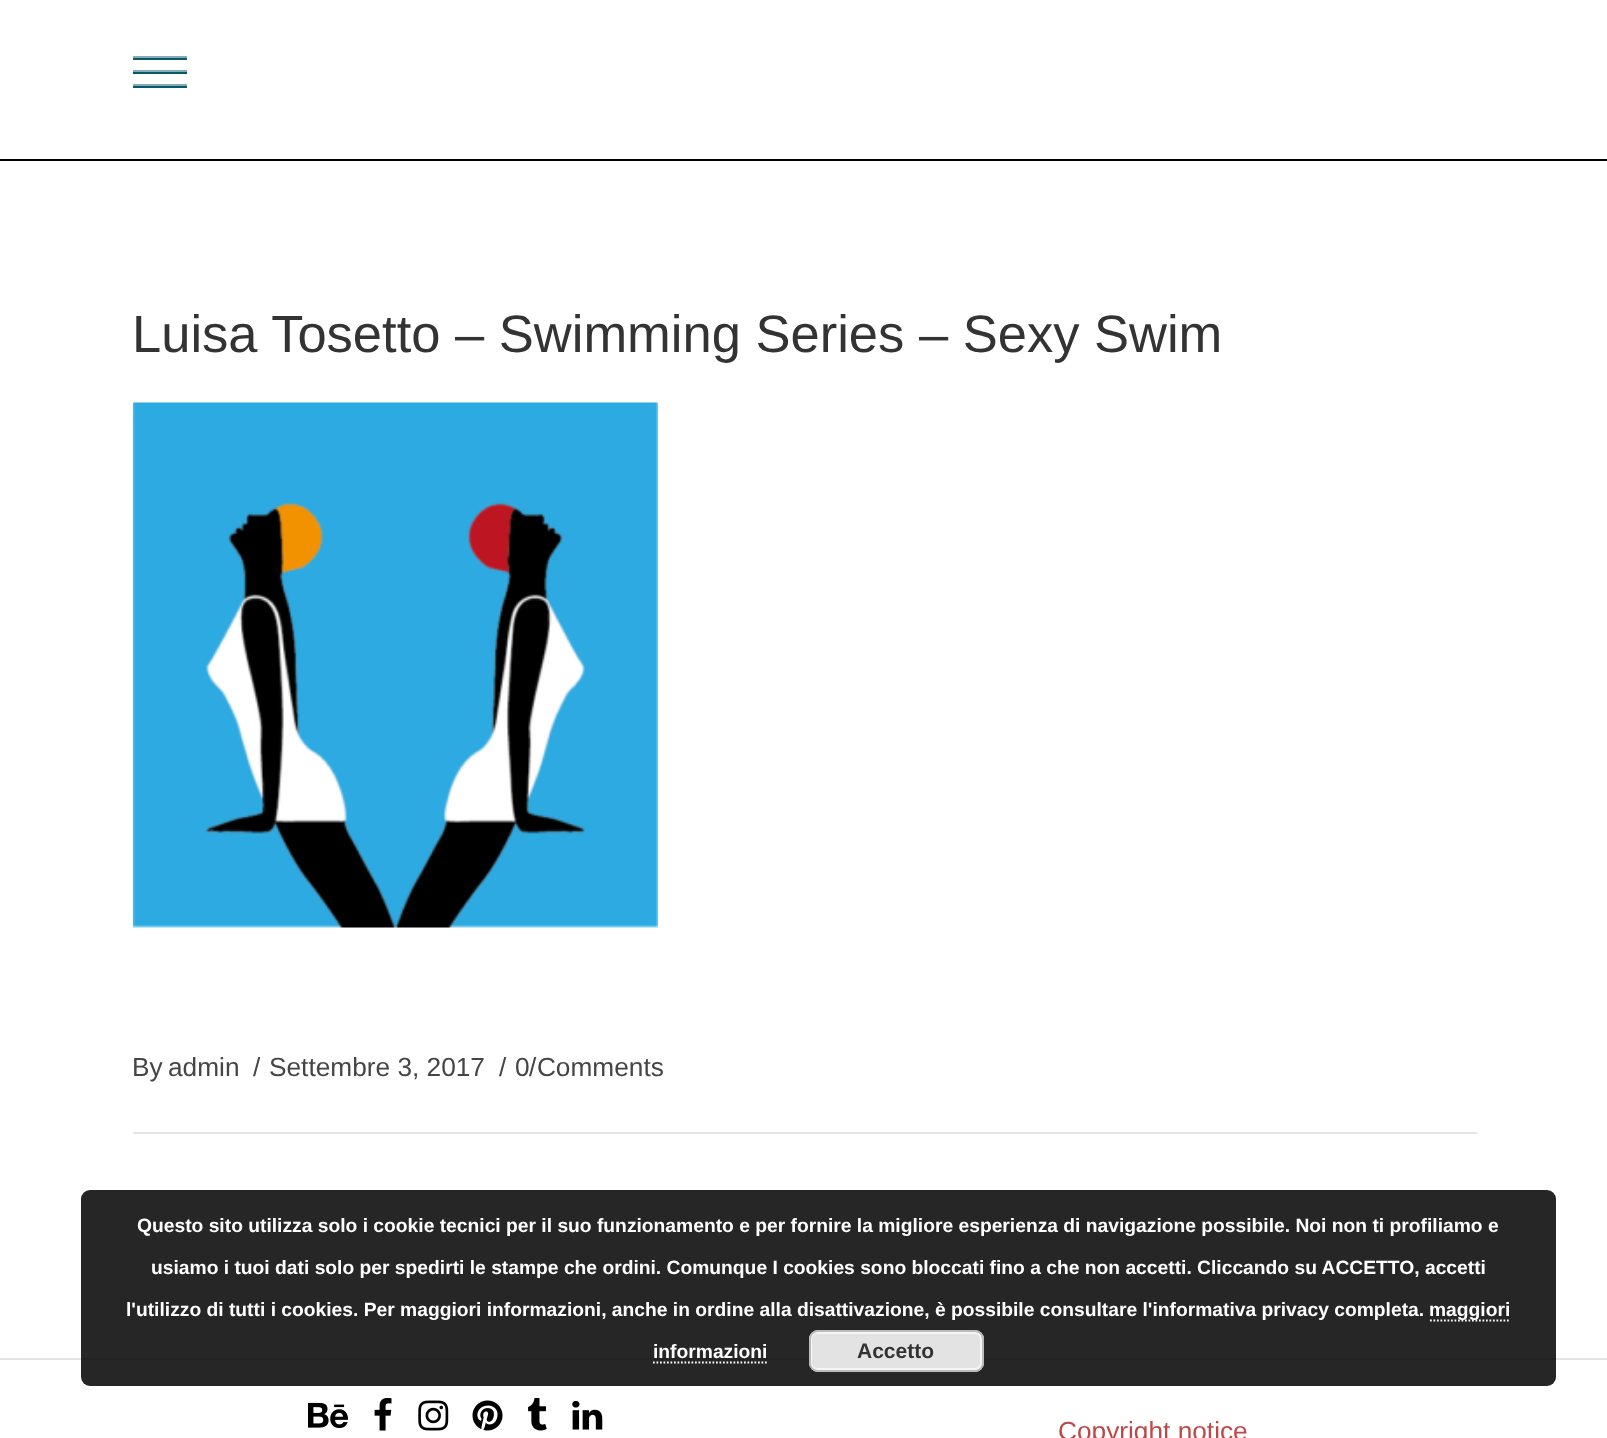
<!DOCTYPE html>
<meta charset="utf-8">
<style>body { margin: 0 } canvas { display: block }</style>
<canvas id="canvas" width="1607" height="1438"></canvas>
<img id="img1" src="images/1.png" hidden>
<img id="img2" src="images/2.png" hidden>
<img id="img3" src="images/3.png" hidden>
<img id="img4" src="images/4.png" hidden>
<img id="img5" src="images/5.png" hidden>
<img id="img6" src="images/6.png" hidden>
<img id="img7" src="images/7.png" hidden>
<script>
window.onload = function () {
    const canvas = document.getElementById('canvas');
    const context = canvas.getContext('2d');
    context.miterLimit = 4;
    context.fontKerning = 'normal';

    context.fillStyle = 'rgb(255, 255, 255)';
    context.fillRect(0, 0, 1607, 1438);
    context.fillStyle = 'rgb(0, 0, 0)';
    context.fillRect(0, 159, 1607, 2);
    context.fillStyle = 'rgb(8, 89, 104)';
    context.fillRect(133, 58, 54, 2);
    context.fillStyle = 'rgb(132, 172, 180)';
    context.fillRect(133, 56, 54, 2);
    context.fillStyle = 'rgb(8, 89, 104)';
    context.fillRect(133, 72, 54, 2);
    context.fillStyle = 'rgb(132, 172, 180)';
    context.fillRect(133, 70, 54, 2);
    context.fillStyle = 'rgb(8, 89, 104)';
    context.fillRect(133, 86, 54, 2);
    context.fillStyle = 'rgb(132, 172, 180)';
    context.fillRect(133, 84, 54, 2);
    context.drawImage(document.getElementById('img1'), 133, 402, 525, 526);
    context.fillStyle = 'rgb(229, 229, 229)';
    context.fillRect(133, 1132, 1344, 2);
    context.fillRect(0, 1358, 1607, 2);
    context.drawImage(document.getElementById('img2'), 308, 1402, 40, 26);
    context.drawImage(document.getElementById('img3'), 374, 1398, 18, 33);
    context.drawImage(document.getElementById('img4'), 418, 1400, 31, 31);
    context.drawImage(document.getElementById('img5'), 472, 1400, 31, 31);
    context.drawImage(document.getElementById('img6'), 528, 1398, 19, 33);
    context.drawImage(document.getElementById('img7'), 572, 1400, 31, 30);
    context.fillStyle = 'rgba(0, 0, 0, 0.85)';
    context.beginPath();
    context.roundRect(81, 1190, 1475, 196, 9);
    context.fill();
    context.beginPath();
    context.moveTo(1430, 1320.5);
    context.lineTo(1510, 1320.5);
    context.strokeStyle = 'rgb(255, 255, 255)';
    context.lineWidth = 1.8;
    context.setLineDash([1.75, 1.75]);
    context.stroke();
    context.beginPath();
    context.moveTo(653, 1362.5);
    context.lineTo(768, 1362.5);
    context.stroke();
    context.fillStyle = 'rgb(227, 227, 227)';
    context.beginPath();
    context.roundRect(809, 1330, 175, 42, 9);
    context.fill();
    context.beginPath();
    context.roundRect(811, 1333, 170, 36, 6);
    context.strokeStyle = 'rgb(246, 246, 246)';
    context.lineWidth = 2;
    context.setLineDash([]);
    context.stroke();
    context.beginPath();
    context.roundRect(810, 1331, 173, 40, 8);
    context.strokeStyle = 'rgb(187, 187, 187)';
    context.stroke();
    context.font = '52.5px Liberation Sans';
    context.fillStyle = 'rgb(51, 51, 51)';
    context.fillText('Luisa Tosetto – Swimming Series – Sexy Swim', 132, 352);
    context.font = '26.25px Liberation Sans';
    context.fillStyle = 'rgb(69, 69, 69)';
    context.fillText('By', 132, 1076);
    context.fillText('admin', 168, 1076);
    context.fillText('/', 253, 1076);
    context.fillText('Settembre 3, 2017', 269, 1076);
    context.fillText('/', 499, 1076);
    context.fillText('/', 529, 1076);
    context.fillText('0 Comments', 515, 1076);
    context.fillStyle = 'rgb(190, 71, 71)';
    context.fillText('Copyright notice', 1058, 1440);
    context.font = 'bold 19.25px Liberation Sans';
    context.fillStyle = 'rgb(255, 255, 255)';
    context.fillText('Questo sito utilizza solo i cookie tecnici per il suo funzionamento e per fornire la migliore esperienza di navigazione possibile. Noi non ti profiliamo e', 137, 1232);
    context.fillText('usiamo i tuoi dati solo per spedirti le stampe che ordini. Comunque I cookies sono bloccati fino a che non accetti. Cliccando su ACCETTO, accetti', 151, 1274);
    context.fillText('l\'utilizzo di tutti i cookies. Per maggiori informazioni, anche in ordine alla disattivazione, è possibile consultare l\'informativa privacy completa.', 126, 1316);
    context.fillText('maggiori', 1429, 1316);
    context.fillText('informazioni', 653, 1358);
    context.font = 'bold 21px Liberation Sans';
    context.fillStyle = 'rgb(51, 51, 51)';
    context.fillText('Accetto', 857, 1358);
};
</script>
